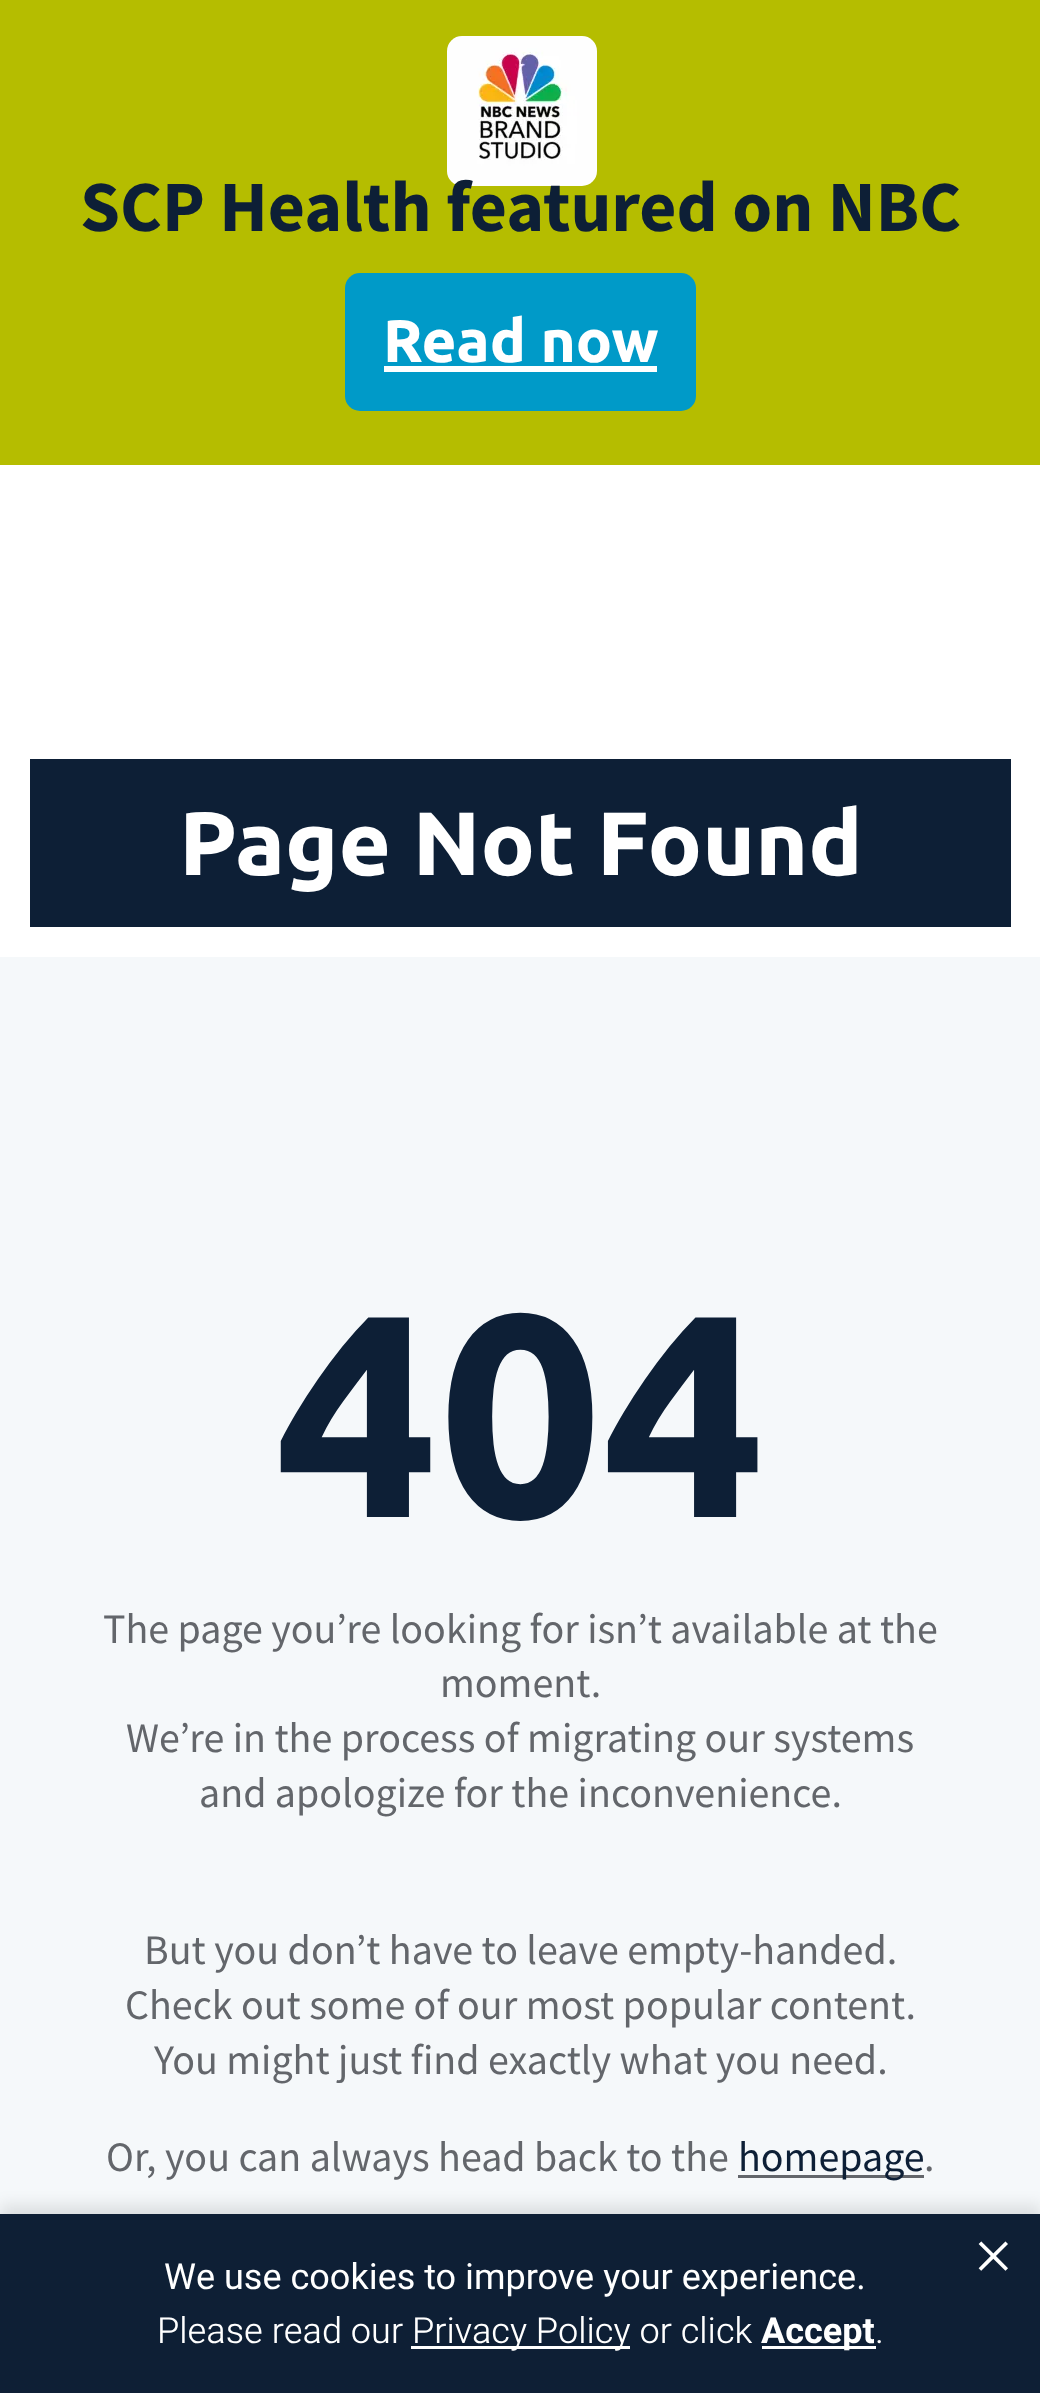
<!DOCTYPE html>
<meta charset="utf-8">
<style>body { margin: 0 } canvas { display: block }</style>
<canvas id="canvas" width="1040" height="2393"></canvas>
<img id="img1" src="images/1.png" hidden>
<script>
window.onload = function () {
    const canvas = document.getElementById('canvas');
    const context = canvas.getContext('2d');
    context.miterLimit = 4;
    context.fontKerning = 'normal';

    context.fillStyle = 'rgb(255, 255, 255)';
    context.fillRect(0, 0, 1040, 2393);
    context.fillStyle = 'rgb(181, 189, 0)';
    context.fillRect(0, 0, 1040, 465);
    context.drawImage(document.getElementById('img1'), 447, 36, 150, 150);
    context.fillStyle = 'rgb(0, 154, 200)';
    context.beginPath();
    context.roundRect(345, 273, 351, 138, 15);
    context.fill();
    context.fillStyle = 'rgb(255, 255, 255)';
    context.fillRect(384, 366, 273, 6);
    context.fillStyle = 'rgb(13, 31, 54)';
    context.fillRect(30, 759, 981, 168);
    context.fillStyle = 'rgb(245, 248, 250)';
    context.fillRect(0, 957, 1040, 1257);
    context.fillStyle = 'rgb(99, 102, 107)';
    context.fillRect(738, 2175, 186, 3);
    context.fillStyle = 'rgba(0, 0, 0, 0.1)';
    context.filter = 'blur(7.5px)';
    context.beginPath();
    context.rect(0, 2205, 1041, 180);
    context.fill();
    context.filter = 'none';
    context.fillStyle = 'rgb(14, 31, 53)';
    context.fillRect(0, 2214, 1040, 179);
    context.fillStyle = 'rgb(255, 255, 255)';
    context.fillRect(411, 2346, 219, 3);
    context.fillRect(762, 2346, 114, 3);
    context.font = 'bold 72px Source Sans Pro';
    context.fillStyle = 'rgb(13, 31, 54)';
    context.fillText('SCP Health featured on NBC', 80, 231);
    context.font = 'bold 60px Ubuntu';
    context.fillStyle = 'rgb(255, 255, 255)';
    context.fillText('Read now', 383, 362);
    context.font = 'bold 90px Ubuntu';
    context.fillText('Page Not Found', 179, 875);
    context.font = 'bold 288px Ubuntu';
    context.fillStyle = 'rgb(13, 31, 54)';
    context.fillText('404', 275, 1517);
    context.font = '42px Source Sans Pro';
    context.fillStyle = 'rgb(99, 102, 107)';
    context.fillText('The page you’re looking for isn’t available at the', 103, 1643);
    context.fillText('moment.', 440, 1697);
    context.fillText('We’re in the process of migrating our systems', 126, 1752);
    context.fillText('and apologize for the inconvenience.', 199, 1807);
    context.fillText('But you don’t have to leave empty-handed.', 144, 1964);
    context.fillText('Check out some of our most popular content.', 125, 2019);
    context.fillText('You might just find exactly what you need.', 154, 2074);
    context.fillText('Or, you can always head back to the', 106, 2171);
    context.fillStyle = 'rgb(13, 31, 54)';
    context.fillText('homepage', 738, 2171);
    context.fillStyle = 'rgb(99, 102, 107)';
    context.fillText('.', 924, 2171);
    context.font = '72px Liberation Serif';
    context.fillStyle = 'rgb(255, 255, 255)';
    context.fillText('×', 973, 2280);
    context.font = '36px Heebo';
    context.fillText('We use cookies to improve your experience.', 164, 2289);
    context.font = '300 36px Heebo';
    context.fillText('Please read our', 157, 2343);
    context.fillText('Privacy Policy or click', 412, 2343);
    context.font = 'bold 36px Heebo';
    context.fillText('Accept', 761, 2343);
    context.font = '300 36px Heebo';
    context.fillText('.', 875, 2343);
};
</script>
